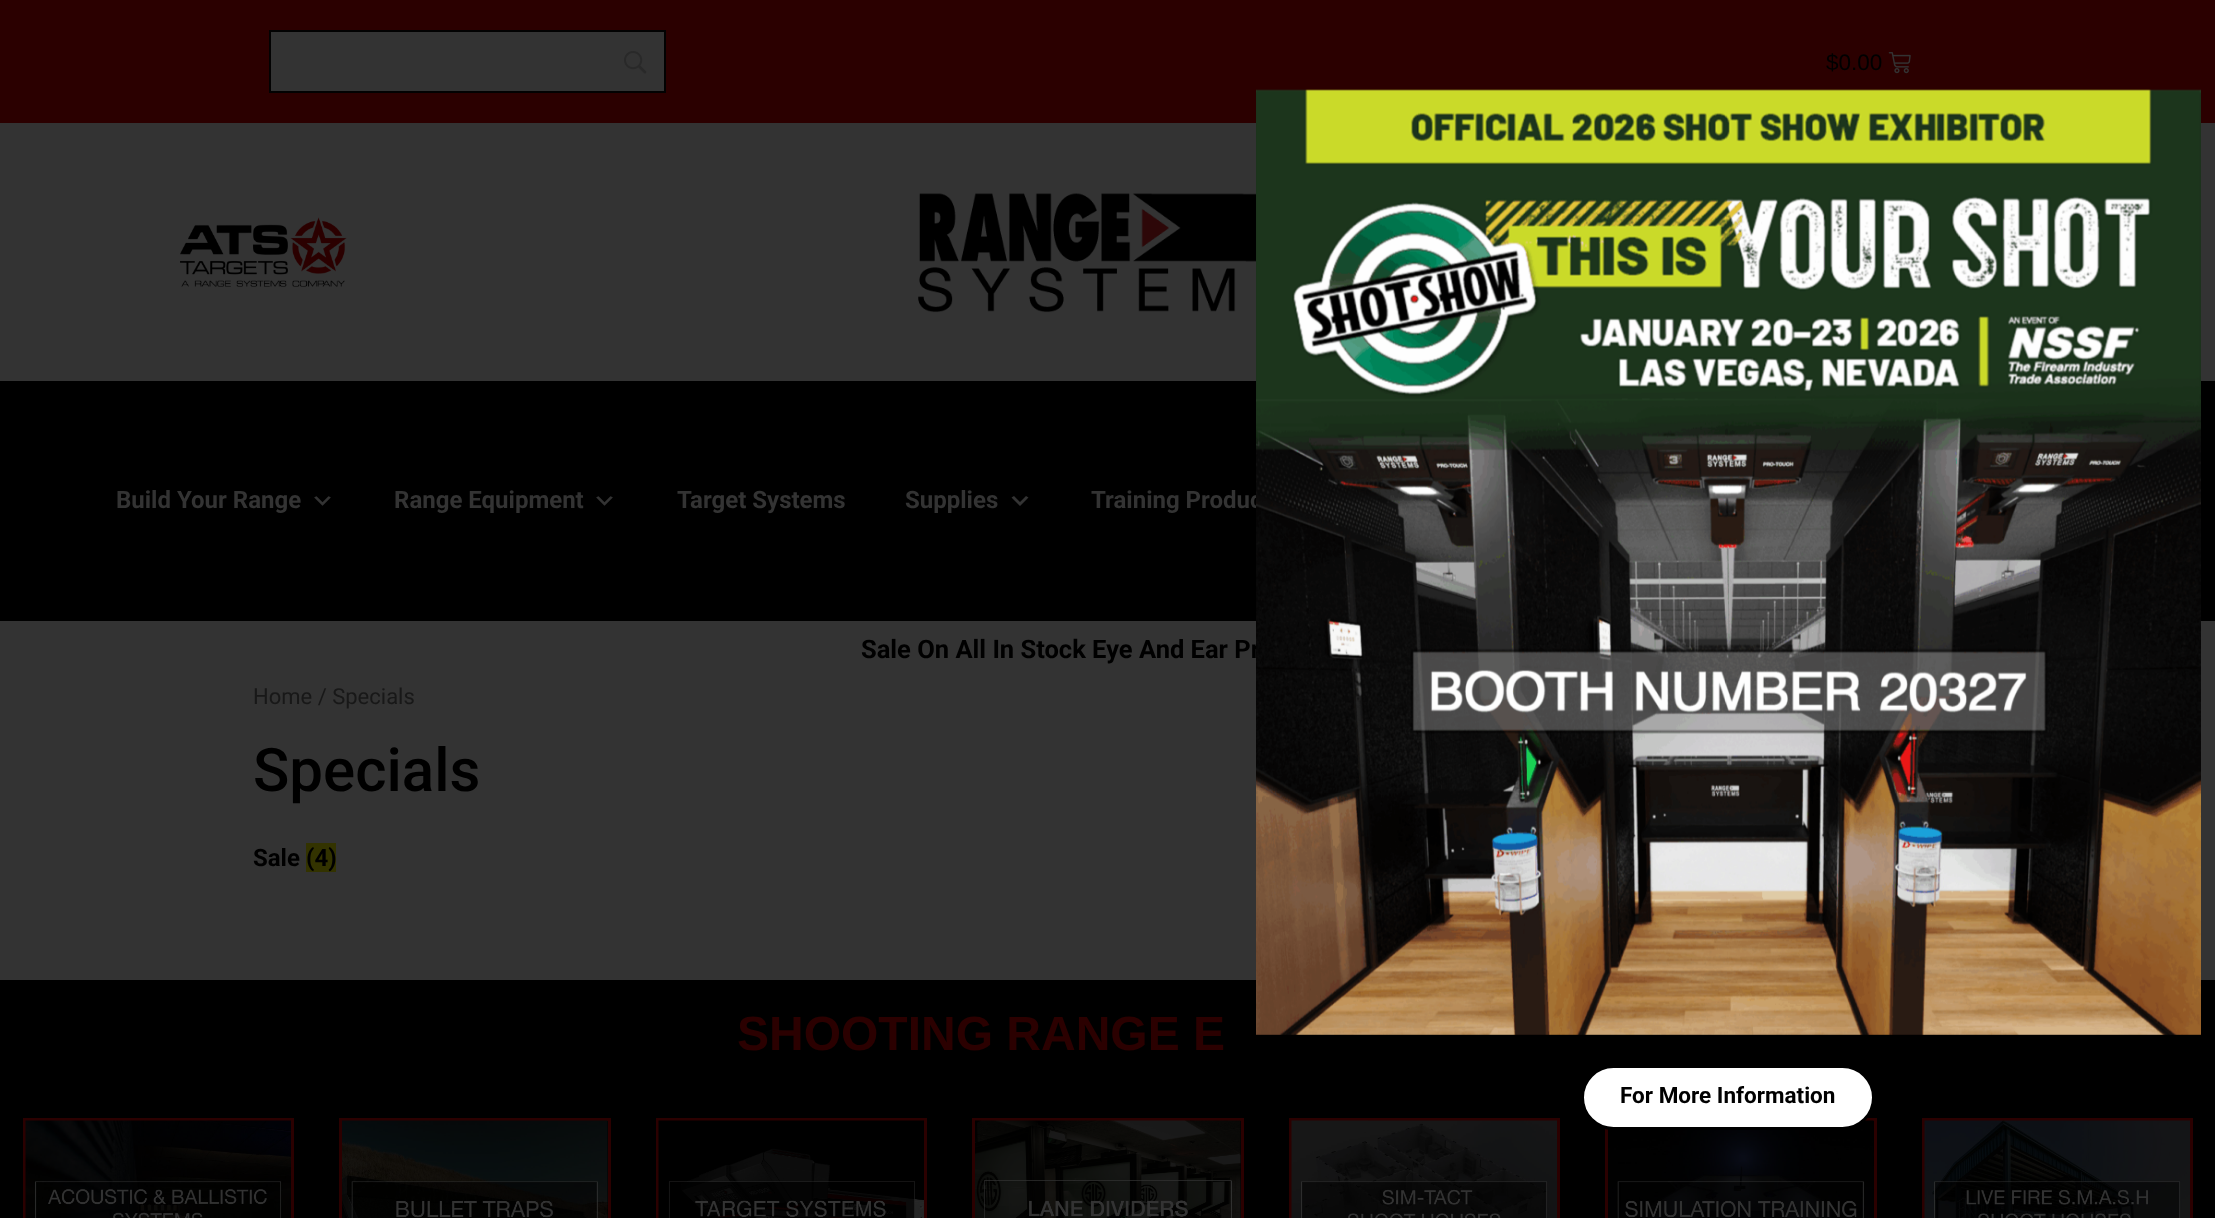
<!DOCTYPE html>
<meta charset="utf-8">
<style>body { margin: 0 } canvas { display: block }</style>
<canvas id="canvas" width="2215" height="1218"></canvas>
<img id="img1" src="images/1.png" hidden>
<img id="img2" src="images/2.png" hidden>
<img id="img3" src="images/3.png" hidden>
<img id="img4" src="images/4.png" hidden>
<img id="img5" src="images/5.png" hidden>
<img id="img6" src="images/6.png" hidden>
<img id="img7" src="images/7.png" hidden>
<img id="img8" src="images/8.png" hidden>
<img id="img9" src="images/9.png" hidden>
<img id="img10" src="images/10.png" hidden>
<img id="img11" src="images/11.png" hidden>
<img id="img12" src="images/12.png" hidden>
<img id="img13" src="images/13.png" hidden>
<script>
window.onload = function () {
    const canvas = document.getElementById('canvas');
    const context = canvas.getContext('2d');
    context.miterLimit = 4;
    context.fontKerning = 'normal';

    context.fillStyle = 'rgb(51, 51, 51)';
    context.fillRect(0, 0, 2215, 1218);
    context.fillStyle = 'rgb(43, 0, 0)';
    context.fillRect(0, 0, 2215, 123);
    context.fillStyle = 'rgb(51, 51, 51)';
    context.fillRect(271, 32, 393, 59);
    context.drawImage(document.getElementById('img1'), 624, 51, 23, 23);
    context.strokeStyle = 'rgb(2, 2, 2)';
    context.lineWidth = 2;
    context.strokeRect(270, 31, 395, 61);
    context.drawImage(document.getElementById('img2'), 1888, 52, 23, 22);
    context.drawImage(document.getElementById('img3'), 180, 217, 167, 70);
    context.drawImage(document.getElementById('img4'), 918, 193, 338, 120);
    context.fillStyle = 'rgb(0, 0, 0)';
    context.fillRect(0, 381, 2215, 240);
    context.drawImage(document.getElementById('img5'), 314, 496, 17, 10);
    context.drawImage(document.getElementById('img5'), 596, 496, 17, 10);
    context.fillStyle = 'rgb(51, 51, 51)';
    context.beginPath();
    context.moveTo(1014, 496);
    context.lineTo(1020, 502);
    context.lineTo(1026, 496);
    context.lineTo(1028.5, 497.5);
    context.lineTo(1020, 506);
    context.lineTo(1011.5, 497.5);
    context.closePath();
    context.fill();
    context.fillStyle = 'rgb(51, 51, 0)';
    context.fillRect(306, 843, 30, 29);
    context.fillStyle = 'rgb(0, 0, 0)';
    context.fillRect(0, 980, 2215, 238);
    context.strokeStyle = 'rgb(43, 0, 0)';
    context.lineWidth = 3;
    context.strokeRect(24.5, 1119.5, 268, 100);
    context.drawImage(document.getElementById('img6'), 25, 1120, 266, 98);
    context.strokeRect(340.5, 1119.5, 269, 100);
    context.drawImage(document.getElementById('img7'), 342, 1120, 266, 98);
    context.strokeRect(657.5, 1119.5, 268, 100);
    context.drawImage(document.getElementById('img8'), 658, 1120, 266, 98);
    context.strokeRect(973.5, 1119.5, 269, 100);
    context.drawImage(document.getElementById('img9'), 975, 1120, 266, 98);
    context.strokeRect(1290.5, 1119.5, 268, 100);
    context.drawImage(document.getElementById('img10'), 1291, 1120, 266, 98);
    context.strokeRect(1606.5, 1119.5, 269, 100);
    context.drawImage(document.getElementById('img11'), 1608, 1120, 266, 98);
    context.strokeRect(1923.5, 1119.5, 268, 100);
    context.drawImage(document.getElementById('img12'), 1924, 1120, 266, 98);
    context.fillStyle = 'rgb(255, 255, 255)';
    context.beginPath();
    context.roundRect(1582.5, 1066.5, 291, 62, 31);
    context.fill();
    context.strokeStyle = 'rgb(0, 0, 0)';
    context.stroke();
    context.font = '22.5px Liberation Sans';
    context.fillStyle = 'rgb(0, 0, 0)';
    context.fillText('$0.00', 1826, 70);
    context.font = 'bold 24px Roboto';
    context.fillStyle = 'rgb(51, 51, 51)';
    context.fillText('Build Your Range', 116, 508);
    context.fillText('Range Equipment', 394, 508);
    context.fillText('Target Systems', 677, 508);
    context.fillText('Supplies', 905, 508);
    context.fillText('Training Produc', 1091, 508);
    context.font = 'bold 25.5px Roboto';
    context.fillStyle = 'rgb(0, 0, 0)';
    context.fillText('Sale On All In Stock Eye And Ear Pr', 861, 658);
    context.font = '22px Roboto';
    context.fillStyle = 'rgb(24, 24, 24)';
    context.fillText('Home / Specials', 253, 704);
    context.font = '500 60px Roboto';
    context.fillStyle = 'rgb(0, 0, 0)';
    context.fillText('Specials', 253, 791);
    context.font = 'bold 24px Roboto';
    context.fillText('Sale', 253, 866);
    context.fillText('(4)', 306, 866);
    context.font = 'bold 48px Liberation Sans';
    context.fillStyle = 'rgb(43, 0, 0)';
    context.fillText('SHOOTING RANGE E', 737, 1050);
    context.drawImage(document.getElementById('img13'), 1256, 89, 945, 946);
    context.font = 'bold 22.5px Roboto';
    context.fillStyle = 'rgb(0, 0, 0)';
    context.fillText('For More Information', 1620, 1103);
};
</script>
